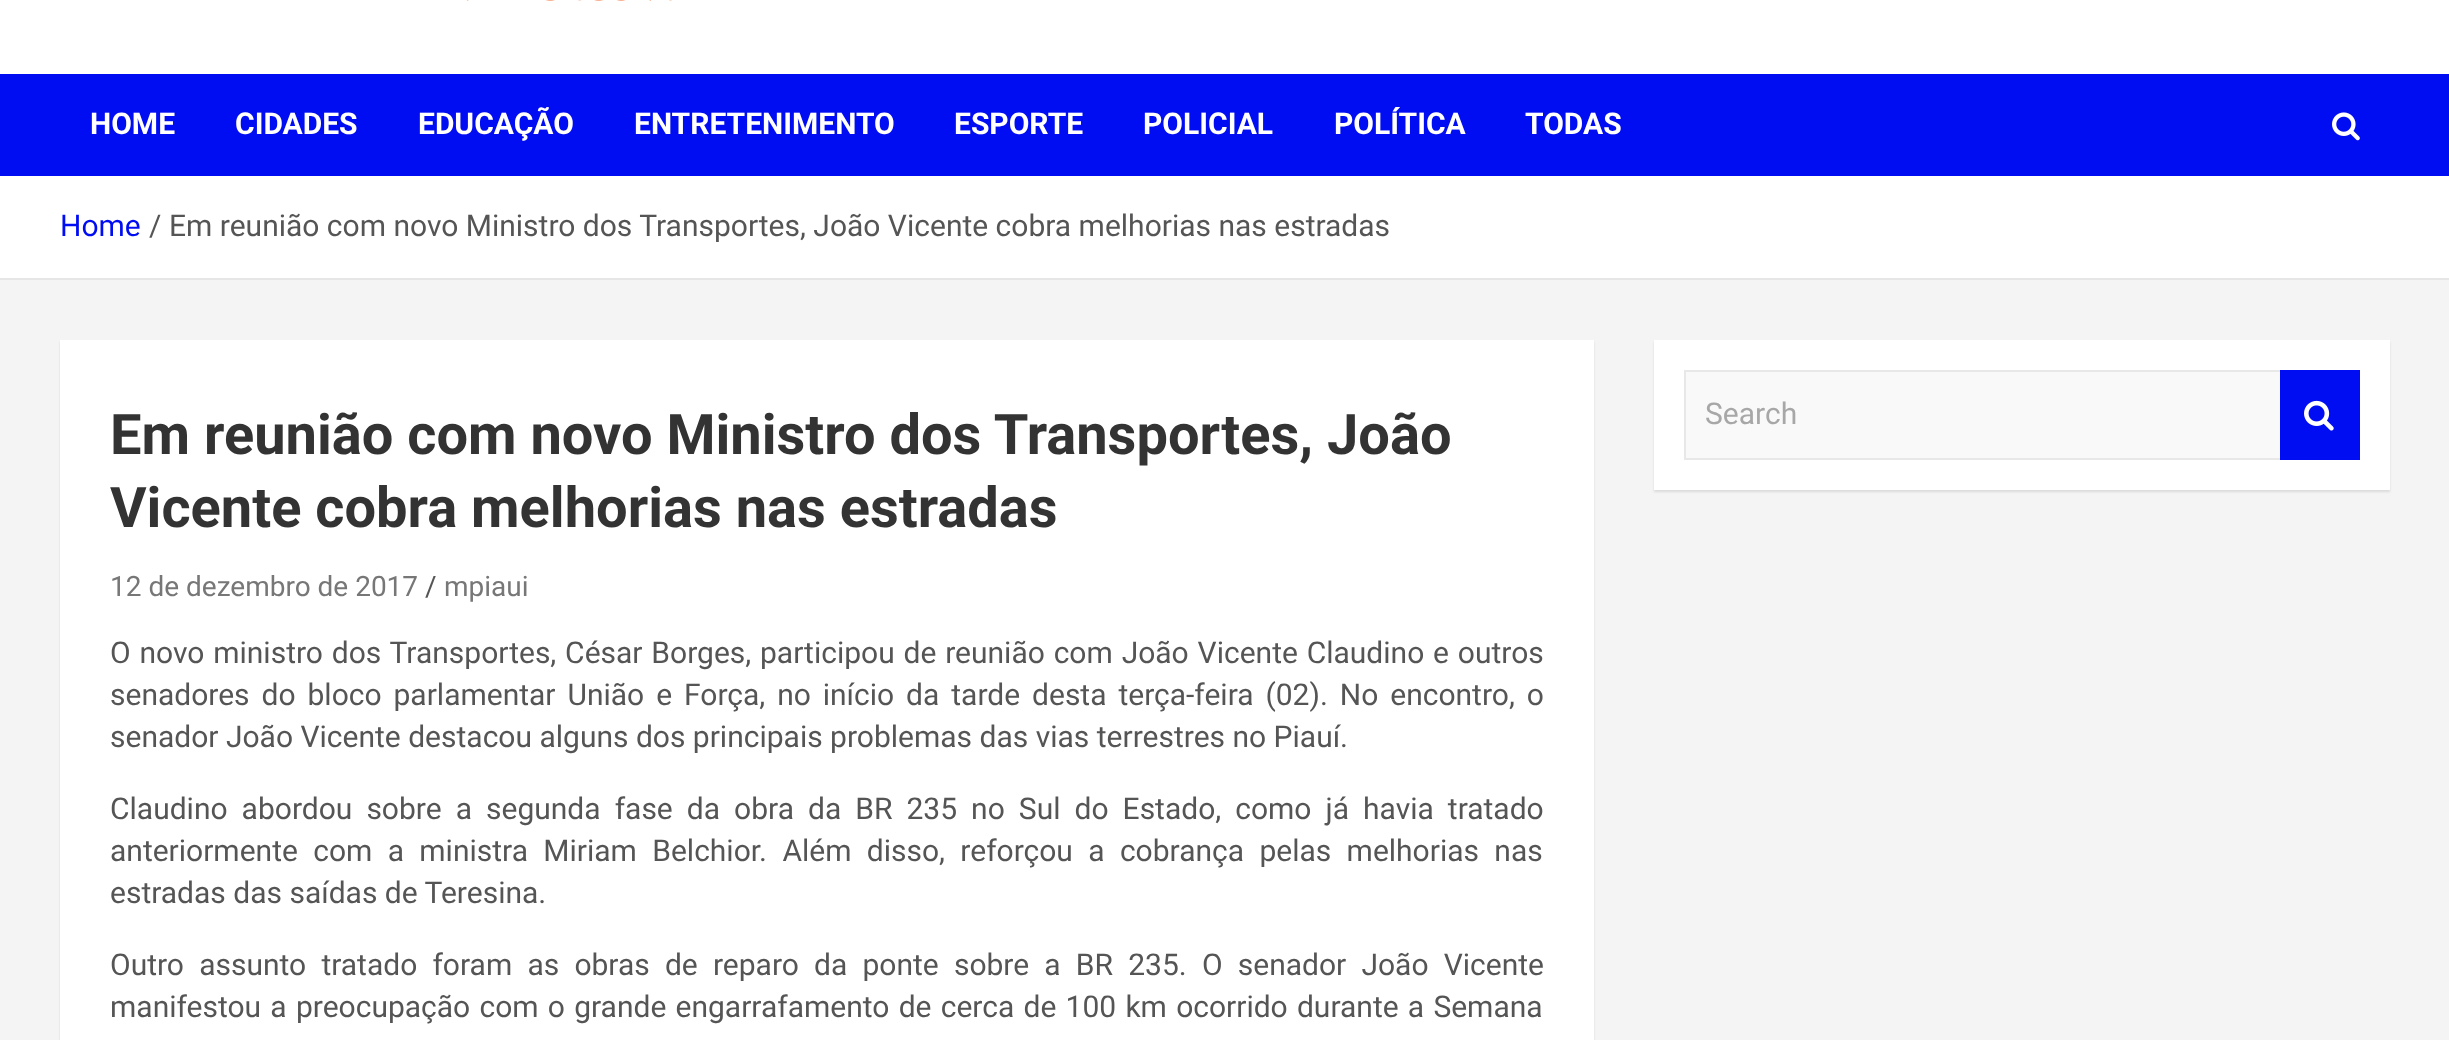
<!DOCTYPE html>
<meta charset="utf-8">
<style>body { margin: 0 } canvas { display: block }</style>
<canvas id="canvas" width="2449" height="1040"></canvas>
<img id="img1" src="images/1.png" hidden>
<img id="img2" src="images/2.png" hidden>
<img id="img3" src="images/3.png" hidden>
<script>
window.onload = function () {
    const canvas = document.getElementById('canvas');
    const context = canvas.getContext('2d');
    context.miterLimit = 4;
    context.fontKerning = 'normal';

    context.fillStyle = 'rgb(244, 244, 244)';
    context.fillRect(0, 0, 2449, 1040);
    context.fillStyle = 'rgb(255, 255, 255)';
    context.fillRect(0, 0, 2449, 74);
    context.drawImage(document.getElementById('img1'), 466, 0, 206, 1);
    context.fillStyle = 'rgb(0, 12, 242)';
    context.fillRect(0, 74, 2449, 102);
    context.drawImage(document.getElementById('img2'), 2332, 112, 28, 29);
    context.fillStyle = 'rgb(255, 255, 255)';
    context.fillRect(0, 176, 2449, 102);
    context.fillStyle = 'rgb(230, 230, 230)';
    context.fillRect(0, 278, 2449, 2);
    context.fillStyle = 'rgba(0, 0, 0, 0.1)';
    context.filter = 'blur(1px)';
    context.beginPath();
    context.rect(60, 342, 1534, 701);
    context.fill();
    context.filter = 'none';
    context.fillStyle = 'rgb(255, 255, 255)';
    context.fillRect(60, 340, 1534, 700);
    context.fillStyle = 'rgba(0, 0, 0, 0.1)';
    context.filter = 'blur(1px)';
    context.beginPath();
    context.rect(1654, 342, 736, 150);
    context.fill();
    context.filter = 'none';
    context.fillStyle = 'rgb(255, 255, 255)';
    context.fillRect(1654, 340, 736, 150);
    context.fillStyle = 'rgb(249, 249, 249)';
    context.fillRect(1686, 372, 594, 86);
    context.fillStyle = 'rgb(232, 232, 232)';
    context.beginPath();
    context.moveTo(1684, 370);
    context.lineTo(2280, 370);
    context.lineTo(2280, 372);
    context.lineTo(1686, 372);
    context.closePath();
    context.fill();
    context.beginPath();
    context.moveTo(2280, 460);
    context.lineTo(1684, 460);
    context.lineTo(1686, 458);
    context.lineTo(2280, 458);
    context.closePath();
    context.fill();
    context.fillStyle = 'rgba(0, 0, 0, 0.09)';
    context.beginPath();
    context.moveTo(1684, 460);
    context.lineTo(1684, 370);
    context.lineTo(1686, 372);
    context.lineTo(1686, 458);
    context.closePath();
    context.fill();
    context.fillStyle = 'rgb(0, 12, 242)';
    context.fillRect(2280, 370, 80, 90);
    context.drawImage(document.getElementById('img3'), 2304, 400, 30, 31);
    context.font = 'bold 30px Roboto';
    context.fillStyle = 'rgb(255, 255, 255)';
    context.fillText('HOME', 90, 134);
    context.fillText('CIDADES', 235, 134);
    context.fillText('EDUCAÇÃO', 418, 134);
    context.fillText('ENTRETENIMENTO', 634, 134);
    context.fillText('ESPORTE', 954, 134);
    context.fillText('POLICIAL', 1143, 134);
    context.fillText('POLÍTICA', 1334, 134);
    context.fillText('TODAS', 1525, 134);
    context.font = '30px Roboto';
    context.fillStyle = 'rgb(0, 12, 242)';
    context.fillText('Home', 60, 236);
    context.fillStyle = 'rgb(85, 85, 85)';
    context.fillText('/', 149, 236);
    context.fillText('Em reunião com novo Ministro dos Transportes, João Vicente cobra melhorias nas estradas', 169, 236);
    context.font = 'bold 56px Roboto';
    context.fillStyle = 'rgb(51, 51, 51)';
    context.fillText('Em reunião com novo Ministro dos Transportes, João', 110, 454);
    context.fillText('Vicente cobra melhorias nas estradas', 110, 527);
    context.font = '28px Roboto';
    context.fillStyle = 'rgb(119, 119, 119)';
    context.fillText('12 de dezembro de 2017', 110, 596);
    context.fillStyle = 'rgb(85, 85, 85)';
    context.fillText('/', 425, 596);
    context.fillStyle = 'rgb(119, 119, 119)';
    context.fillText('mpiaui', 444, 596);
    context.wordSpacing = '1.4px';
    context.font = '30px Roboto';
    context.fillStyle = 'rgb(85, 85, 85)';
    context.fillText('O novo ministro dos Transportes, César Borges, participou de reunião com João Vicente Claudino e outros', 110, 663);
    context.wordSpacing = '4.5px';
    context.fillText('senadores do bloco parlamentar União e Força, no início da tarde desta terça-feira (02). No encontro, o', 110, 705);
    context.wordSpacing = '0px';
    context.fillText('senador João Vicente destacou alguns dos principais problemas das vias terrestres no Piauí.', 110, 747);
    context.wordSpacing = '6.6px';
    context.fillText('Claudino abordou sobre a segunda fase da obra da BR 235 no Sul do Estado, como já havia tratado', 110, 819);
    context.wordSpacing = '7.9px';
    context.fillText('anteriormente com a ministra Miriam Belchior. Além disso, reforçou a cobrança pelas melhorias nas', 110, 861);
    context.wordSpacing = '0px';
    context.fillText('estradas das saídas de Teresina.', 110, 903);
    context.wordSpacing = '7.75px';
    context.fillText('Outro assunto tratado foram as obras de reparo da ponte sobre a BR 235. O senador João Vicente', 110, 975);
    context.wordSpacing = '1.8px';
    context.fillText('manifestou a preocupação com o grande engarrafamento de cerca de 100 km ocorrido durante a Semana', 110, 1017);
    context.wordSpacing = '0px';
    context.fillStyle = 'rgb(167, 167, 167)';
    context.fillText('Search', 1705, 424);
};
</script>
